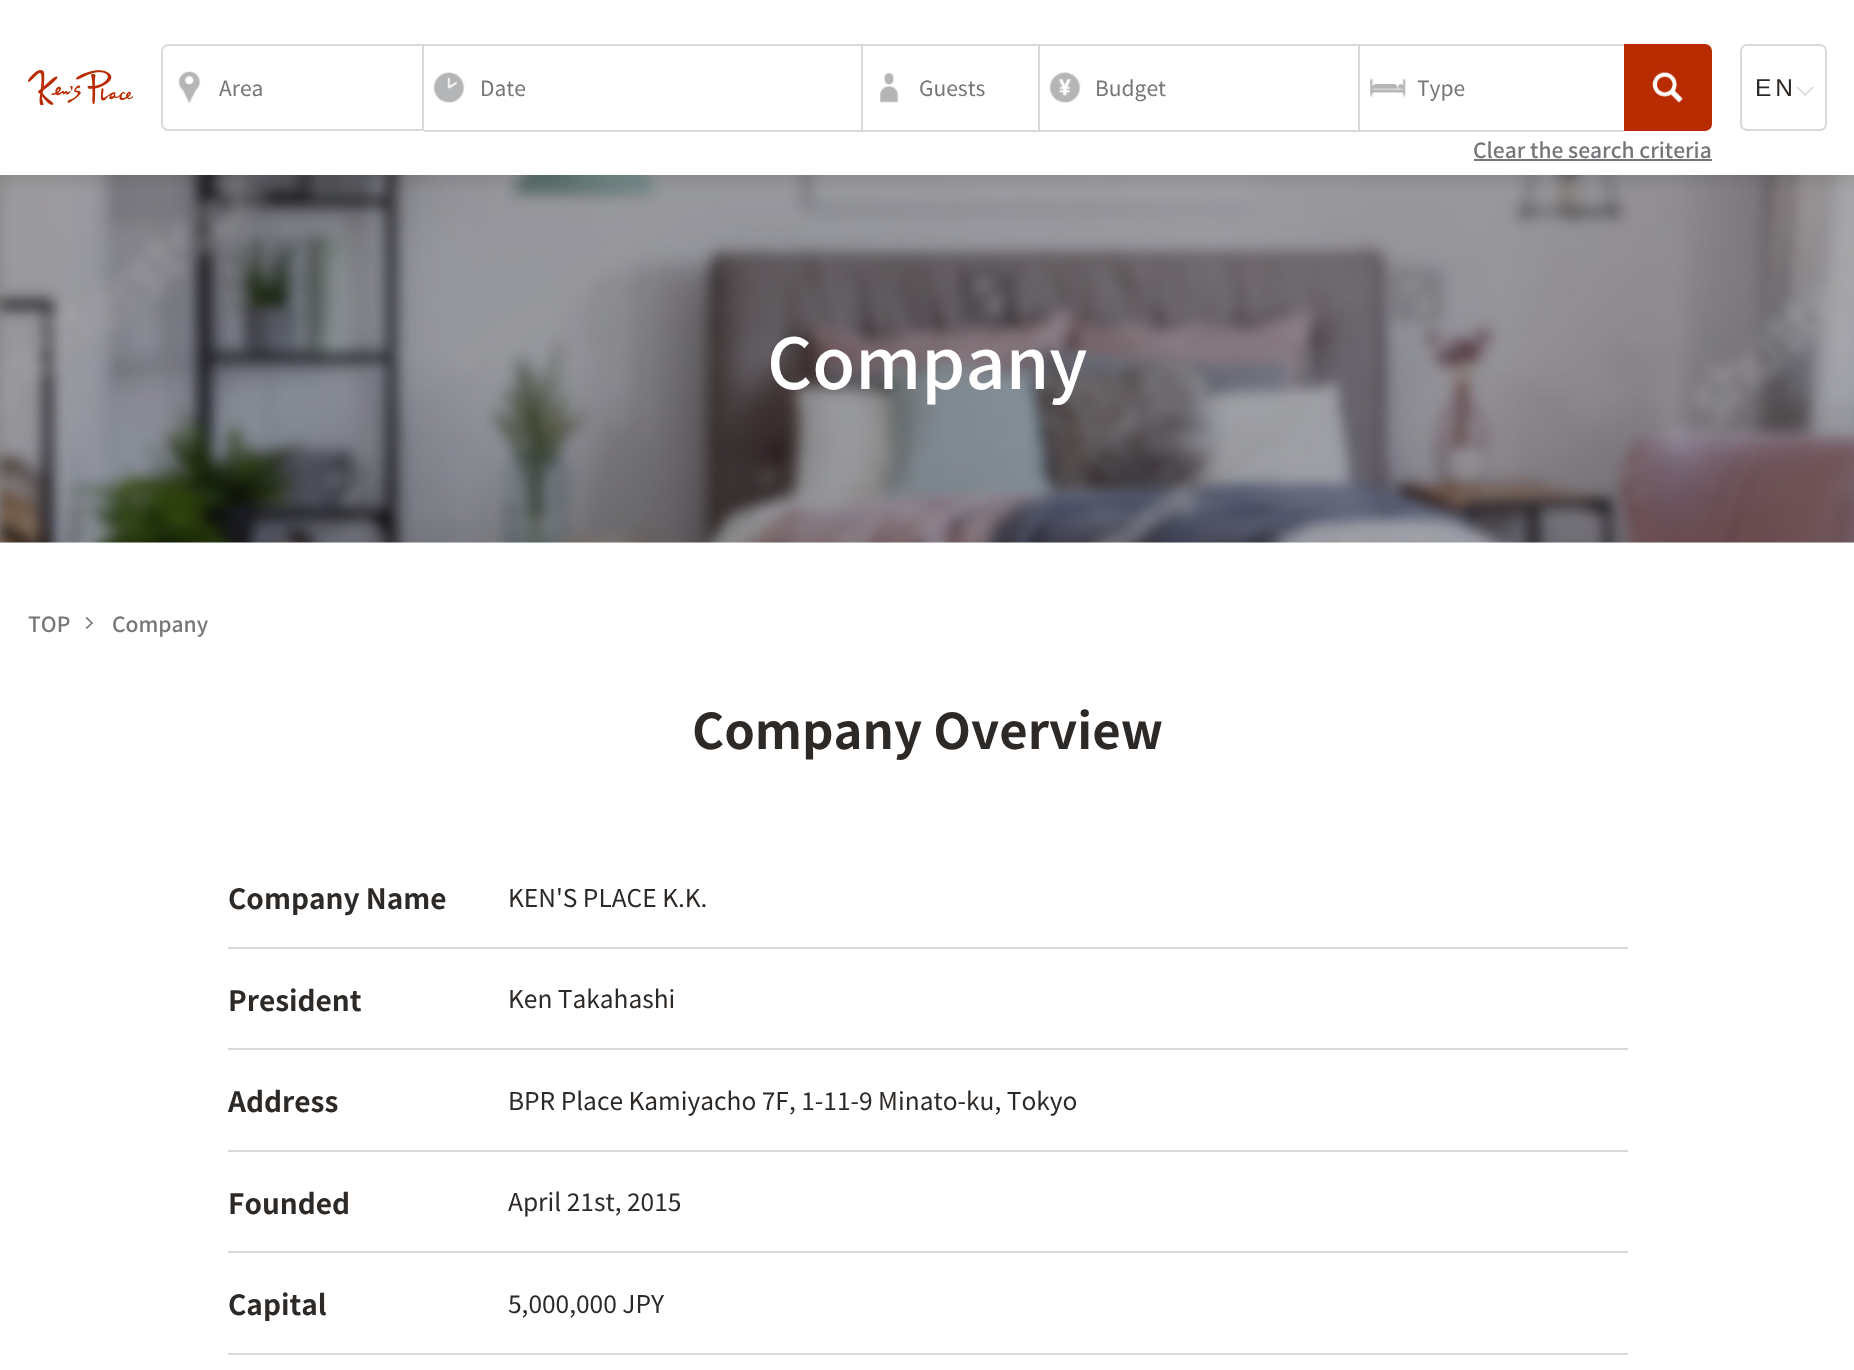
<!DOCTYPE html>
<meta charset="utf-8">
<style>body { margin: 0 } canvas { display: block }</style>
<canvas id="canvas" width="1854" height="1370"></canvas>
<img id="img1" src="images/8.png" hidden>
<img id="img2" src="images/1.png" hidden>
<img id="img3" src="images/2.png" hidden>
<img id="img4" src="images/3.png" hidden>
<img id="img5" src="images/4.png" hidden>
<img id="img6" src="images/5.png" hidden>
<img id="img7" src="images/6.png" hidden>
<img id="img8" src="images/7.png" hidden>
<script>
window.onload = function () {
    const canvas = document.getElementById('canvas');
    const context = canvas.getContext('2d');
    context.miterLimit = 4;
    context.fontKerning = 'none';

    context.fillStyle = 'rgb(255, 255, 255)';
    context.fillRect(0, 0, 1854, 1370);
    context.drawImage(document.getElementById('img1'), 0, 175, 1854, 368);
    context.save();
    context.beginPath();
    context.rect(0, 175, 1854, 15);
    context.clip();
    context.fillStyle = 'rgba(45, 41, 38, 0.15)';
    context.filter = 'blur(9px)';
    context.beginPath();
    context.rect(0, 5, 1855, 175);
    context.fill();
    context.filter = 'none';
    context.restore();
    context.drawImage(document.getElementById('img2'), 28, 70, 105, 35);
    context.beginPath();
    context.roundRect(162, 45, 261, 85, [6, 0, 0, 6]);
    context.strokeStyle = 'rgb(217, 217, 219)';
    context.lineWidth = 2;
    context.stroke();
    context.drawImage(document.getElementById('img3'), 178, 71, 23, 33);
    context.fillStyle = 'rgb(217, 217, 219)';
    context.fillRect(424, 44, 1200, 2);
    context.fillRect(861, 44, 2, 87);
    context.fillRect(424, 130, 439, 2);
    context.drawImage(document.getElementById('img4'), 433, 72, 32, 31);
    context.fillRect(1038, 44, 2, 87);
    context.fillRect(863, 130, 177, 2);
    context.drawImage(document.getElementById('img5'), 880, 72, 19, 31);
    context.fillRect(1358, 44, 2, 87);
    context.fillRect(1040, 130, 584, 2);
    context.drawImage(document.getElementById('img6'), 1049, 72, 32, 31);
    context.drawImage(document.getElementById('img7'), 1370, 78, 36, 19);
    context.fillStyle = 'rgb(185, 43, 0)';
    context.beginPath();
    context.roundRect(1624, 44, 88, 87, [0, 7, 7, 0]);
    context.fill();
    context.drawImage(document.getElementById('img8'), 1652, 71, 31, 32);
    context.fillStyle = 'rgb(117, 118, 121)';
    context.fillRect(1474, 159, 238, 2);
    context.beginPath();
    context.roundRect(1741, 45, 85, 85, 6);
    context.stroke();
    context.fillStyle = 'rgb(217, 217, 219)';
    context.beginPath();
    context.moveTo(1804, 95);
    context.lineTo(1812.5, 86.5);
    context.lineTo(1814, 87.5);
    context.lineTo(1805, 96);
    context.closePath();
    context.fill();
    context.beginPath();
    context.moveTo(1796.5, 87.5);
    context.lineTo(1797.5, 86.5);
    context.lineTo(1806.5, 95);
    context.lineTo(1805, 96);
    context.closePath();
    context.fill();
    context.fillStyle = 'rgb(117, 118, 121)';
    context.beginPath();
    context.moveTo(87, 617);
    context.lineTo(93, 623);
    context.lineTo(92, 624);
    context.lineTo(85.5, 618);
    context.closePath();
    context.fill();
    context.beginPath();
    context.moveTo(92, 622);
    context.lineTo(93, 623);
    context.lineTo(87, 629);
    context.lineTo(85.5, 628);
    context.closePath();
    context.fill();
    context.fillStyle = 'rgb(217, 217, 219)';
    context.fillRect(228, 947, 1400, 2);
    context.fillRect(228, 1048, 1400, 2);
    context.fillRect(228, 1150, 1400, 2);
    context.fillRect(228, 1251, 1400, 2);
    context.fillRect(228, 1353, 1400, 2);
    context.font = '21px Noto Sans JP';
    context.fillStyle = 'rgb(117, 118, 121)';
    context.fillText('Area', 219, 96);
    context.fillText('Date', 480, 96);
    context.fillText('Guests', 919, 96);
    context.fillText('Budget', 1095, 96);
    context.fillText('Type', 1417, 96);
    context.font = '500 21px Noto Sans JP';
    context.fillText('Clear the search criteria', 1473, 158);
    context.letterSpacing = '4px';
    context.font = '24.5px Liberation Sans';
    context.fillStyle = 'rgb(45, 41, 38)';
    context.fillText('EN', 1755, 96);
    context.letterSpacing = '0px';
    context.font = '500 70px Noto Sans JP';
    context.fillStyle = 'rgb(255, 255, 255)';
    context.fillText('Company', 767, 389);
    context.font = '500 21px Noto Sans JP';
    context.fillStyle = 'rgb(117, 118, 121)';
    context.fillText('TOP', 28, 632);
    context.fillText('Company', 112, 632);
    context.font = 'bold 49px Noto Sans JP';
    context.fillStyle = 'rgb(45, 41, 38)';
    context.fillText('Company Overview', 692, 749);
    context.font = 'bold 28px Noto Sans JP';
    context.fillText('Company Name', 228, 909);
    context.font = '24.5px Noto Sans JP';
    context.fillText('KEN\'S PLACE K.K.', 508, 907);
    context.font = 'bold 28px Noto Sans JP';
    context.fillText('President', 228, 1011);
    context.font = '24.5px Noto Sans JP';
    context.fillText('Ken Takahashi', 508, 1008);
    context.font = 'bold 28px Noto Sans JP';
    context.fillText('Address', 228, 1112);
    context.font = '24.5px Noto Sans JP';
    context.fillText('BPR Place Kamiyacho 7F, 1-11-9 Minato-ku, Tokyo', 508, 1110);
    context.font = 'bold 28px Noto Sans JP';
    context.fillText('Founded', 228, 1214);
    context.font = '24.5px Noto Sans JP';
    context.fillText('April 21st, 2015', 508, 1211);
    context.font = 'bold 28px Noto Sans JP';
    context.fillText('Capital', 228, 1315);
    context.font = '24.5px Noto Sans JP';
    context.fillText('5,000,000 JPY', 508, 1313);
};
</script>
